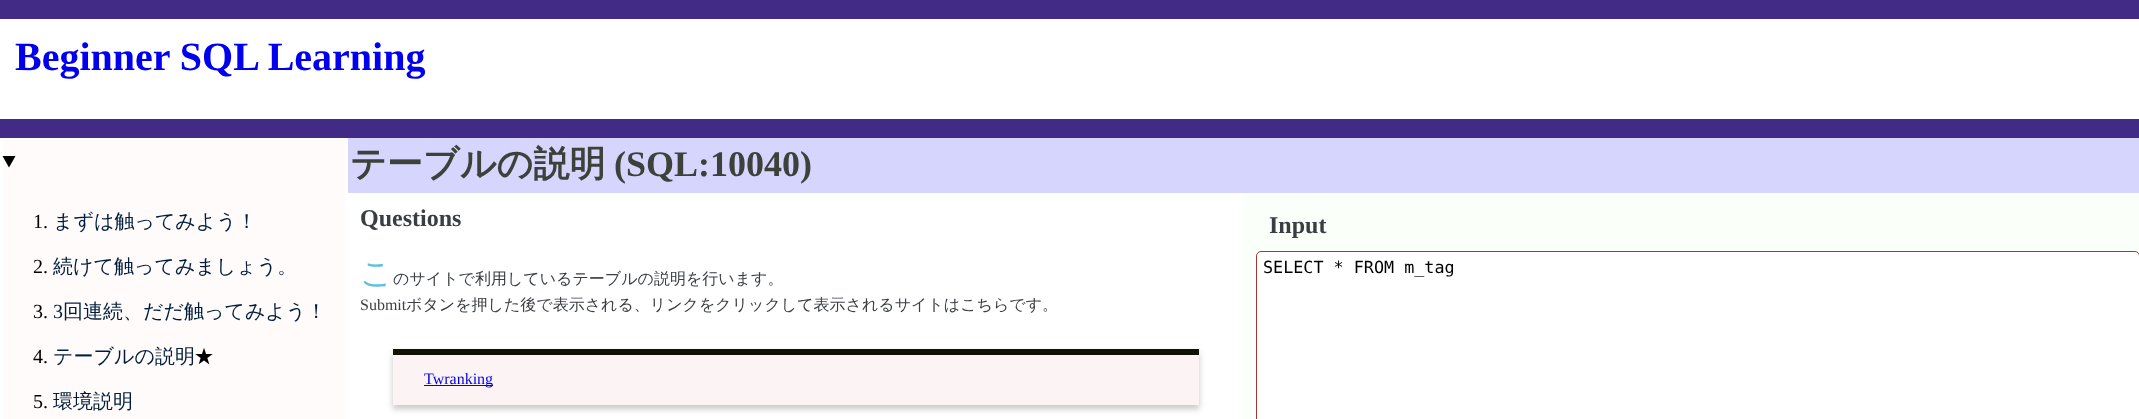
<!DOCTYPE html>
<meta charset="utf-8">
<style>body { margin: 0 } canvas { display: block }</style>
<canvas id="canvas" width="2139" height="419"></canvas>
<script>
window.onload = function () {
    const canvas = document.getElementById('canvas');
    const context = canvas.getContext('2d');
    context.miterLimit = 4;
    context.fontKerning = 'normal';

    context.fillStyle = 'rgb(255, 255, 255)';
    context.fillRect(0, 0, 2139, 419);
    context.fillStyle = 'rgb(66, 43, 134)';
    context.fillRect(0, 0, 2139, 19);
    context.fillRect(0, 119, 2139, 19);
    context.fillStyle = 'rgb(213, 213, 253)';
    context.fillRect(348, 138, 1791, 55);
    context.fillStyle = 'rgb(255, 251, 251)';
    context.fillRect(3, 140, 342, 279);
    context.fillStyle = 'rgb(0, 0, 0)';
    context.beginPath();
    context.moveTo(2.5, 156);
    context.lineTo(15.5, 156);
    context.lineTo(9, 167.5);
    context.closePath();
    context.fill();
    context.fillStyle = 'rgba(0, 0, 0, 0.22)';
    context.filter = 'blur(3px)';
    context.beginPath();
    context.rect(393, 353, 806, 56);
    context.fill();
    context.filter = 'none';
    context.fillStyle = 'rgb(252, 244, 244)';
    context.fillRect(393, 355, 806, 50);
    context.fillStyle = 'rgb(18, 19, 4)';
    context.fillRect(393, 349, 806, 6);
    context.fillStyle = 'rgb(0, 0, 238)';
    context.fillRect(424, 385, 69, 1);
    context.fillStyle = 'rgb(251, 255, 250)';
    context.fillRect(1244, 193, 895, 226);
    context.fillStyle = 'rgb(255, 255, 255)';
    context.beginPath();
    context.roundRect(1256.5, 251.5, 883, 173, 4.5);
    context.fill();
    context.strokeStyle = 'rgb(163, 55, 55)';
    context.stroke();
    context.font = 'bold 40px Liberation Serif';
    context.fillStyle = 'rgb(0, 0, 238)';
    context.fillText('Beginner SQL Learning', 15, 70);
    context.font = 'bold 36px WenQuanYi Zen Hei';
    context.fillStyle = 'rgb(60, 66, 58)';
    context.fillText('テーブルの説明', 350, 176);
    context.font = 'bold 36px Liberation Serif';
    context.fillText('(SQL:10040)', 614, 176);
    context.font = '20px Liberation Serif';
    context.fillStyle = 'rgb(0, 0, 0)';
    context.fillText('1.', 33, 228);
    context.font = '500 20px WenQuanYi Zen Hei';
    context.fillStyle = 'rgb(0, 30, 59)';
    context.fillText('まずは触ってみよう！', 53, 228);
    context.font = '20px Liberation Serif';
    context.fillStyle = 'rgb(0, 0, 0)';
    context.fillText('2.', 33, 273);
    context.font = '500 20px WenQuanYi Zen Hei';
    context.fillStyle = 'rgb(0, 30, 59)';
    context.fillText('続けて触ってみましょう。', 53, 273);
    context.font = '20px Liberation Serif';
    context.fillStyle = 'rgb(0, 0, 0)';
    context.fillText('3.', 33, 318);
    context.fillStyle = 'rgb(0, 30, 59)';
    context.fillText('3', 53, 318);
    context.font = '500 20px WenQuanYi Zen Hei';
    context.fillText('回連続、だだ触ってみよう！', 63, 318);
    context.font = '20px Liberation Serif';
    context.fillStyle = 'rgb(0, 0, 0)';
    context.fillText('4.', 33, 363);
    context.font = '500 20px WenQuanYi Zen Hei';
    context.fillStyle = 'rgb(0, 30, 59)';
    context.fillText('テーブルの説明', 53, 363);
    context.fillStyle = 'rgb(0, 0, 0)';
    context.fillText('★', 194, 363);
    context.font = '20px Liberation Serif';
    context.fillText('5.', 33, 408);
    context.font = '500 20px WenQuanYi Zen Hei';
    context.fillStyle = 'rgb(0, 30, 59)';
    context.fillText('環境説明', 53, 408);
    context.font = 'bold 24px Liberation Serif';
    context.fillStyle = 'rgb(58, 62, 66)';
    context.fillText('Questions', 360, 226);
    context.font = '300 32px Noto Sans';
    context.fillStyle = 'rgb(91, 192, 222)';
    context.fillText('こ', 360, 284);
    context.font = '500 16px WenQuanYi Zen Hei';
    context.fillStyle = 'rgb(58, 62, 66)';
    context.fillText('のサイトで利用しているテーブルの説明を行います。', 393, 284);
    context.font = '16px Liberation Serif';
    context.fillText('Submit', 360, 310);
    context.font = '500 16px WenQuanYi Zen Hei';
    context.fillText('ボタンを押した後で表示される、リンクをクリックして表示されるサイトはこちらです。', 406, 310);
    context.font = '16px Liberation Serif';
    context.fillStyle = 'rgb(0, 0, 238)';
    context.fillText('Twranking', 424, 384);
    context.font = 'bold 24px Liberation Serif';
    context.fillStyle = 'rgb(58, 62, 66)';
    context.fillText('Input', 1269, 233);
    context.font = '16.75px DejaVu Sans Mono';
    context.fillStyle = 'rgb(0, 0, 0)';
    context.fillText('SELECT * FROM m_tag', 1263, 273);
};
</script>
